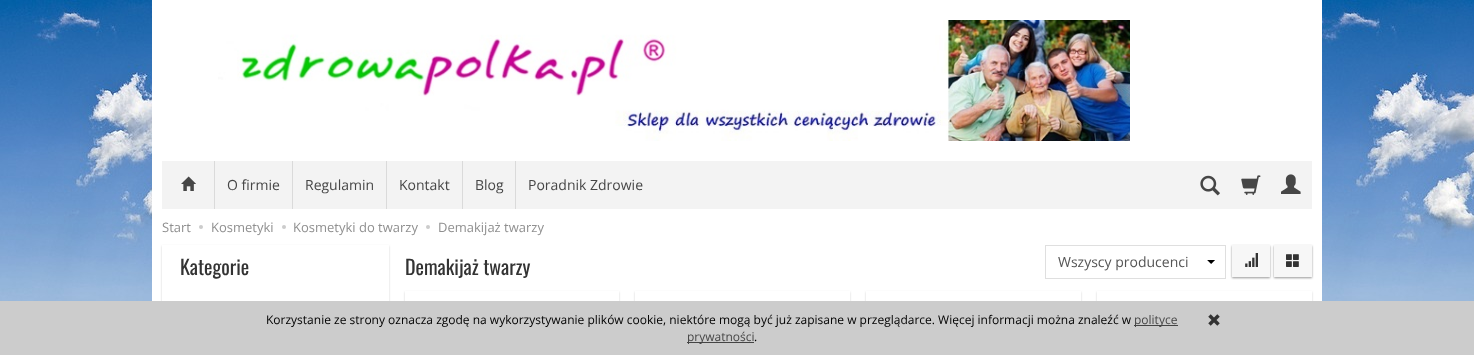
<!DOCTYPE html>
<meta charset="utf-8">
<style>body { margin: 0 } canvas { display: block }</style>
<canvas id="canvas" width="1474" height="355"></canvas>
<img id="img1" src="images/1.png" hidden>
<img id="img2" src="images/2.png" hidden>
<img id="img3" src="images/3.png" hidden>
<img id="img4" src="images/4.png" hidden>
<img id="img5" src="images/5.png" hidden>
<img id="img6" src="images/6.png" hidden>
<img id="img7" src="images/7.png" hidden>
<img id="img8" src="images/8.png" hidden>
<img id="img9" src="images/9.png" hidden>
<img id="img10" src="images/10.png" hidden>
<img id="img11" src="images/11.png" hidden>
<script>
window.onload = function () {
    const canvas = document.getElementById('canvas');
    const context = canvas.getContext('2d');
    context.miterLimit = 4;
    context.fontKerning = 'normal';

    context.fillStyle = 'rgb(255, 255, 255)';
    context.fillRect(0, 0, 1474, 355);
    context.drawImage(document.getElementById('img1'), 0, 0, 1474, 301);
    context.fillRect(152, 0, 1170, 209);
    context.drawImage(document.getElementById('img2'), 218, 41, 19, 71);
    context.drawImage(document.getElementById('img3'), 237, 20, 893, 121);
    context.fillStyle = 'rgb(243, 243, 243)';
    context.fillRect(162, 161, 1150, 48);
    context.drawImage(document.getElementById('img4'), 181, 176, 15, 15);
    context.fillStyle = 'rgb(218, 218, 218)';
    context.fillRect(214, 161, 1, 48);
    context.fillRect(292, 161, 1, 48);
    context.fillRect(386, 161, 1, 48);
    context.fillRect(462, 161, 1, 48);
    context.fillRect(515, 161, 1, 48);
    context.drawImage(document.getElementById('img5'), 1200, 175, 20, 21);
    context.drawImage(document.getElementById('img6'), 1241, 175, 20, 20);
    context.drawImage(document.getElementById('img7'), 1281, 174, 20, 20);
    context.fillStyle = 'rgb(255, 255, 255)';
    context.fillRect(152, 209, 1170, 92);
    context.fillStyle = 'rgb(204, 204, 204)';
    context.beginPath();
    context.arc(201, 227, 2, 0, 2 * Math.PI);
    context.fill();
    context.beginPath();
    context.arc(284, 227, 2, 0, 2 * Math.PI);
    context.fill();
    context.beginPath();
    context.arc(428, 227, 2, 0, 2 * Math.PI);
    context.fill();
    context.save();
    context.beginPath();
    context.moveTo(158, 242);
    context.lineTo(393, 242);
    context.lineTo(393, 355);
    context.lineTo(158, 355);
    context.closePath();
    context.moveTo(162, 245);
    context.lineTo(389, 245);
    context.lineTo(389, 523);
    context.lineTo(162, 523);
    context.closePath();
    context.clip('evenodd');
    context.fillStyle = 'rgb(211, 211, 211)';
    context.filter = 'blur(1px)';
    context.beginPath();
    context.rect(162, 246, 227, 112);
    context.fill();
    context.filter = 'none';
    context.restore();
    context.drawImage(document.getElementById('img8'), 1207, 260, 8, 4);
    context.strokeStyle = 'rgb(223, 223, 223)';
    context.strokeRect(1045.5, 245.5, 180, 33);
    context.fillStyle = 'rgb(151, 151, 151)';
    context.filter = 'blur(1px)';
    context.beginPath();
    context.rect(1232, 246, 38, 32);
    context.fill();
    context.filter = 'none';
    context.fillStyle = 'rgb(247, 247, 247)';
    context.fillRect(1232, 245, 38, 32);
    context.drawImage(document.getElementById('img9'), 1245, 253, 13, 14);
    context.fillStyle = 'rgb(151, 151, 151)';
    context.filter = 'blur(1px)';
    context.beginPath();
    context.rect(1274, 246, 38, 32);
    context.fill();
    context.filter = 'none';
    context.fillStyle = 'rgb(247, 247, 247)';
    context.fillRect(1274, 245, 38, 32);
    context.drawImage(document.getElementById('img10'), 1286, 254, 13, 13);
    context.save();
    context.beginPath();
    context.moveTo(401, 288);
    context.lineTo(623, 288);
    context.lineTo(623, 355);
    context.lineTo(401, 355);
    context.closePath();
    context.moveTo(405, 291);
    context.lineTo(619, 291);
    context.lineTo(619, 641);
    context.lineTo(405, 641);
    context.closePath();
    context.clip('evenodd');
    context.fillStyle = 'rgb(211, 211, 211)';
    context.filter = 'blur(1px)';
    context.beginPath();
    context.rect(405, 292, 214, 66);
    context.fill();
    context.filter = 'none';
    context.restore();
    context.save();
    context.beginPath();
    context.moveTo(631, 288);
    context.lineTo(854, 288);
    context.lineTo(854, 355);
    context.lineTo(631, 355);
    context.closePath();
    context.moveTo(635, 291);
    context.lineTo(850, 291);
    context.lineTo(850, 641);
    context.lineTo(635, 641);
    context.closePath();
    context.clip('evenodd');
    context.fillStyle = 'rgb(211, 211, 211)';
    context.filter = 'blur(1px)';
    context.beginPath();
    context.rect(635, 292, 215, 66);
    context.fill();
    context.filter = 'none';
    context.restore();
    context.save();
    context.beginPath();
    context.moveTo(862, 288);
    context.lineTo(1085, 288);
    context.lineTo(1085, 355);
    context.lineTo(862, 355);
    context.closePath();
    context.moveTo(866, 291);
    context.lineTo(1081, 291);
    context.lineTo(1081, 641);
    context.lineTo(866, 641);
    context.closePath();
    context.clip('evenodd');
    context.fillStyle = 'rgb(211, 211, 211)';
    context.filter = 'blur(1px)';
    context.beginPath();
    context.rect(866, 292, 215, 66);
    context.fill();
    context.filter = 'none';
    context.restore();
    context.save();
    context.beginPath();
    context.moveTo(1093, 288);
    context.lineTo(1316, 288);
    context.lineTo(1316, 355);
    context.lineTo(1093, 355);
    context.closePath();
    context.moveTo(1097, 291);
    context.lineTo(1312, 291);
    context.lineTo(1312, 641);
    context.lineTo(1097, 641);
    context.closePath();
    context.clip('evenodd');
    context.fillStyle = 'rgb(211, 211, 211)';
    context.filter = 'blur(1px)';
    context.beginPath();
    context.rect(1097, 292, 215, 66);
    context.fill();
    context.filter = 'none';
    context.restore();
    context.fillStyle = 'rgb(204, 204, 204)';
    context.fillRect(0, 301, 1474, 54);
    context.fillStyle = 'rgb(68, 68, 68)';
    context.fillRect(1134, 325, 44, 1);
    context.fillRect(687, 342, 67, 1);
    context.drawImage(document.getElementById('img11'), 1208, 314, 12, 12);
    context.font = '14px Open Sans';
    context.fillStyle = 'rgb(70, 70, 70)';
    context.fillText('O firmie', 227, 190);
    context.fillText('Regulamin', 305, 190);
    context.fillText('Kontakt', 399, 190);
    context.fillText('Blog', 475, 190);
    context.fillText('Poradnik Zdrowie', 528, 190);
    context.font = '13px Open Sans';
    context.fillStyle = 'rgb(144, 144, 144)';
    context.fillText('Start', 162, 232);
    context.fillText('Kosmetyki', 211, 232);
    context.fillText('Kosmetyki do twarzy', 293, 232);
    context.fillText('Demakijaż twarzy', 438, 232);
    context.font = '20px Oswald';
    context.fillStyle = 'rgb(51, 51, 51)';
    context.fillText('Kategorie', 180, 275);
    context.fillText('Demakijaż twarzy', 405, 275);
    context.font = '14px Open Sans';
    context.fillStyle = 'rgb(85, 85, 85)';
    context.fillText('Wszyscy producenci', 1058, 267);
    context.font = '12px Open Sans';
    context.fillStyle = 'rgb(0, 0, 0)';
    context.fillText('Korzystanie ze strony oznacza zgodę na wykorzystywanie plików cookie, niektóre mogą być już zapisane w przeglądarce. Więcej informacji można znaleźć w', 266, 324);
    context.fillStyle = 'rgb(70, 70, 70)';
    context.fillText('polityce', 1134, 324);
    context.fillText('prywatności', 687, 341);
    context.fillStyle = 'rgb(0, 0, 0)';
    context.fillText('.', 754, 341);
};
</script>
